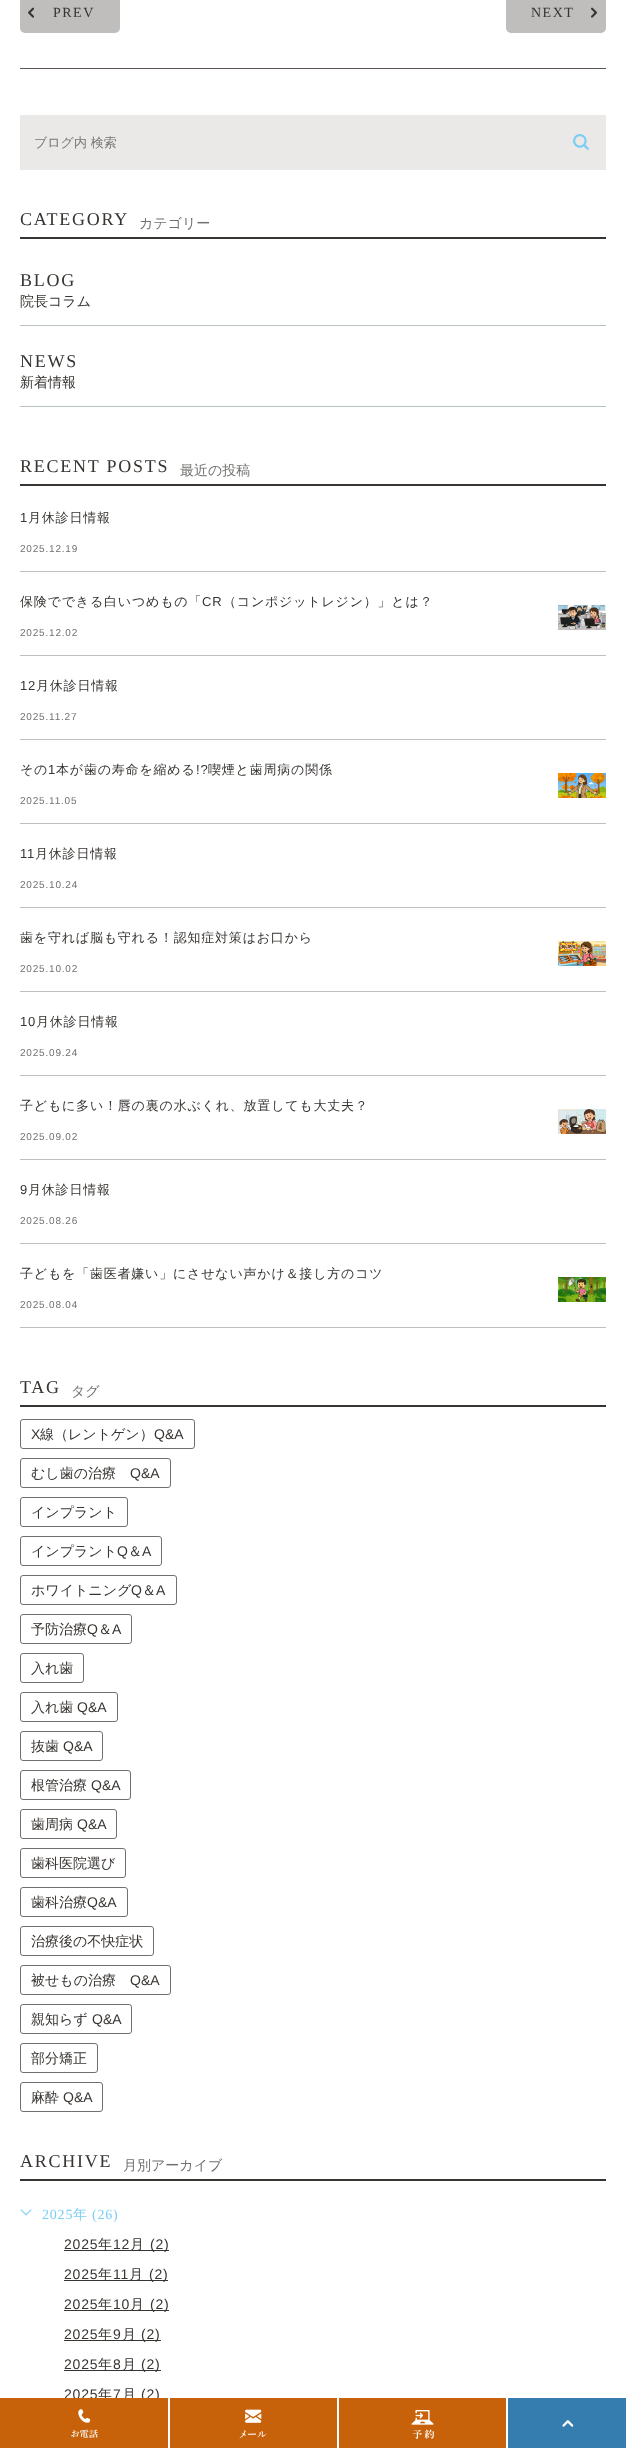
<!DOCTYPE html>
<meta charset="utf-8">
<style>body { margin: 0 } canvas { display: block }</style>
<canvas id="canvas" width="626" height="2448"></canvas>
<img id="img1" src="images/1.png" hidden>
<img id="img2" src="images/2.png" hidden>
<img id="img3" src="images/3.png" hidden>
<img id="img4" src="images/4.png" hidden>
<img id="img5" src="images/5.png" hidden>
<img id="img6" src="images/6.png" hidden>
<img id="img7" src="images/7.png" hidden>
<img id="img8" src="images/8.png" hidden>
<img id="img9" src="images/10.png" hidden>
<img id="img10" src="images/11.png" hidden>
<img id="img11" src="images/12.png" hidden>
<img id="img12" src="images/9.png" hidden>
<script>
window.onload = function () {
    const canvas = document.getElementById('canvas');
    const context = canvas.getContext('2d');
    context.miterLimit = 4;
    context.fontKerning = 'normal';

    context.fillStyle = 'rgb(255, 255, 255)';
    context.fillRect(0, 0, 626, 2448);
    context.fillStyle = 'rgb(191, 190, 189)';
    context.beginPath();
    context.roundRect(20, -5, 100, 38, 5);
    context.fill();
    context.drawImage(document.getElementById('img1'), 28, 7, 6, 11);
    context.beginPath();
    context.roundRect(506, -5, 100, 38, 5);
    context.fill();
    context.drawImage(document.getElementById('img2'), 591, 7, 6, 11);
    context.fillStyle = 'rgb(93, 85, 85)';
    context.fillRect(20, 68, 586, 1);
    context.fillStyle = 'rgb(235, 233, 231)';
    context.fillRect(20, 115, 586, 55);
    context.drawImage(document.getElementById('img3'), 573, 134, 16, 16);
    context.fillStyle = 'rgb(55, 52, 49)';
    context.fillRect(20, 237, 586, 2);
    context.fillStyle = 'rgb(184, 194, 193)';
    context.fillRect(20, 325, 586, 1);
    context.fillRect(20, 406, 586, 1);
    context.fillStyle = 'rgb(55, 52, 49)';
    context.fillRect(20, 484, 586, 2);
    context.fillStyle = 'rgb(191, 190, 189)';
    context.fillRect(20, 571, 586, 1);
    context.fillRect(20, 655, 586, 1);
    context.drawImage(document.getElementById('img4'), 558, 605, 48, 25);
    context.fillRect(20, 739, 586, 1);
    context.fillRect(20, 823, 586, 1);
    context.drawImage(document.getElementById('img5'), 558, 773, 48, 25);
    context.fillRect(20, 907, 586, 1);
    context.fillRect(20, 991, 586, 1);
    context.drawImage(document.getElementById('img6'), 558, 941, 48, 25);
    context.fillRect(20, 1075, 586, 1);
    context.fillRect(20, 1159, 586, 1);
    context.drawImage(document.getElementById('img7'), 558, 1109, 48, 25);
    context.fillRect(20, 1243, 586, 1);
    context.fillRect(20, 1327, 586, 1);
    context.drawImage(document.getElementById('img8'), 558, 1277, 48, 25);
    context.fillStyle = 'rgb(55, 52, 49)';
    context.fillRect(20, 1405, 586, 2);
    context.beginPath();
    context.roundRect(20.5, 1419.5, 174, 29, 2.5);
    context.strokeStyle = 'rgb(114, 112, 110)';
    context.stroke();
    context.beginPath();
    context.roundRect(20.5, 1458.5, 150, 29, 2.5);
    context.stroke();
    context.beginPath();
    context.roundRect(20.5, 1497.5, 107, 29, 2.5);
    context.stroke();
    context.beginPath();
    context.roundRect(20.5, 1536.5, 141, 29, 2.5);
    context.stroke();
    context.beginPath();
    context.roundRect(20.5, 1575.5, 156, 29, 2.5);
    context.stroke();
    context.beginPath();
    context.roundRect(20.5, 1614.5, 111, 29, 2.5);
    context.stroke();
    context.beginPath();
    context.roundRect(20.5, 1653.5, 63, 29, 2.5);
    context.stroke();
    context.beginPath();
    context.roundRect(20.5, 1692.5, 97, 29, 2.5);
    context.stroke();
    context.beginPath();
    context.roundRect(20.5, 1731.5, 82, 29, 2.5);
    context.stroke();
    context.beginPath();
    context.roundRect(20.5, 1770.5, 110, 29, 2.5);
    context.stroke();
    context.beginPath();
    context.roundRect(20.5, 1809.5, 96, 29, 2.5);
    context.stroke();
    context.beginPath();
    context.roundRect(20.5, 1848.5, 105, 29, 2.5);
    context.stroke();
    context.beginPath();
    context.roundRect(20.5, 1887.5, 107, 29, 2.5);
    context.stroke();
    context.beginPath();
    context.roundRect(20.5, 1926.5, 133, 29, 2.5);
    context.stroke();
    context.beginPath();
    context.roundRect(20.5, 1965.5, 150, 29, 2.5);
    context.stroke();
    context.beginPath();
    context.roundRect(20.5, 2004.5, 111, 29, 2.5);
    context.stroke();
    context.beginPath();
    context.roundRect(20.5, 2043.5, 77, 29, 2.5);
    context.stroke();
    context.beginPath();
    context.roundRect(20.5, 2082.5, 82, 29, 2.5);
    context.stroke();
    context.fillRect(20, 2179, 586, 2);
    context.fillStyle = 'rgb(124, 206, 244)';
    context.beginPath();
    context.moveTo(31, 2209);
    context.lineTo(31.5, 2210);
    context.lineTo(26, 2215.5);
    context.lineTo(25.5, 2214.5);
    context.closePath();
    context.fill();
    context.beginPath();
    context.moveTo(21, 2209);
    context.lineTo(26.5, 2214.5);
    context.lineTo(26, 2215.5);
    context.lineTo(20.5, 2210);
    context.closePath();
    context.fill();
    context.fillStyle = 'rgb(55, 52, 49)';
    context.fillRect(64, 2250, 105, 1);
    context.fillRect(64, 2280, 104, 1);
    context.fillRect(64, 2310, 105, 1);
    context.fillRect(64, 2340, 97, 1);
    context.fillRect(64, 2370, 97, 1);
    context.fillStyle = 'rgb(199, 98, 10)';
    context.fillRect(170, 2398, 167, 50);
    context.drawImage(document.getElementById('img9'), 239, 2409, 28, 30);
    context.fillRect(339, 2398, 167, 50);
    context.drawImage(document.getElementById('img10'), 411, 2410, 23, 29);
    context.fillStyle = 'rgb(54, 125, 175)';
    context.fillRect(508, 2398, 118, 50);
    context.drawImage(document.getElementById('img11'), 562, 2420, 12, 7);
    context.letterSpacing = '1.5px';
    context.font = '14px Liberation Serif';
    context.fillStyle = 'rgb(55, 52, 49)';
    context.fillText('PREV', 53, 17);
    context.fillText('NEXT', 531, 17);
    context.letterSpacing = '0px';
    context.font = '500 13px WenQuanYi Zen Hei';
    context.fillStyle = 'rgb(117, 117, 117)';
    context.fillText('ブログ内 検索', 34, 147);
    context.letterSpacing = '1.75px';
    context.font = '18px Liberation Serif';
    context.fillStyle = 'rgb(55, 52, 49)';
    context.fillText('CATEGORY', 20, 225);
    context.letterSpacing = '0px';
    context.font = '500 14px WenQuanYi Zen Hei';
    context.fillStyle = 'rgb(114, 112, 110)';
    context.fillText('カテゴリー', 139, 228);
    context.letterSpacing = '1.75px';
    context.font = '18px Liberation Serif';
    context.fillStyle = 'rgb(55, 52, 49)';
    context.fillText('BLOG', 20, 286);
    context.letterSpacing = '0px';
    context.font = '500 14px WenQuanYi Zen Hei';
    context.fillText('院長コラム', 20, 306);
    context.letterSpacing = '1.75px';
    context.font = '18px Liberation Serif';
    context.fillText('NEWS', 20, 367);
    context.letterSpacing = '0px';
    context.font = '500 14px WenQuanYi Zen Hei';
    context.fillText('新着情報', 20, 387);
    context.letterSpacing = '1.75px';
    context.font = '18px Liberation Serif';
    context.fillText('RECENT POSTS', 20, 472);
    context.letterSpacing = '0px';
    context.font = '500 14px WenQuanYi Zen Hei';
    context.fillStyle = 'rgb(114, 112, 110)';
    context.fillText('最近の投稿', 180, 475);
    context.letterSpacing = '0.8px';
    context.font = '13px Liberation Sans';
    context.fillStyle = 'rgb(55, 52, 49)';
    context.fillText('1', 20, 522);
    context.font = '500 13px WenQuanYi Zen Hei';
    context.fillText('月休診日情報', 28, 522);
    context.font = '10px Liberation Sans';
    context.fillStyle = 'rgb(114, 112, 110)';
    context.fillText('2025.12.19', 20, 552);
    context.font = '500 13px WenQuanYi Zen Hei';
    context.fillStyle = 'rgb(55, 52, 49)';
    context.fillText('保険でできる白いつめもの「', 20, 606);
    context.font = '13px Liberation Sans';
    context.fillText('CR', 202, 606);
    context.font = '500 13px WenQuanYi Zen Hei';
    context.fillText('（コンポジットレジン）」とは？', 223, 606);
    context.font = '10px Liberation Sans';
    context.fillStyle = 'rgb(114, 112, 110)';
    context.fillText('2025.12.02', 20, 636);
    context.font = '13px Liberation Sans';
    context.fillStyle = 'rgb(55, 52, 49)';
    context.fillText('12', 20, 690);
    context.font = '500 13px WenQuanYi Zen Hei';
    context.fillText('月休診日情報', 36, 690);
    context.font = '10px Liberation Sans';
    context.fillStyle = 'rgb(114, 112, 110)';
    context.fillText('2025.11.27', 20, 720);
    context.font = '500 13px WenQuanYi Zen Hei';
    context.fillStyle = 'rgb(55, 52, 49)';
    context.fillText('その', 20, 774);
    context.font = '13px Liberation Sans';
    context.fillText('1', 48, 774);
    context.font = '500 13px WenQuanYi Zen Hei';
    context.fillText('本が歯の寿命を縮める', 56, 774);
    context.font = '13px Liberation Sans';
    context.fillText('!?', 196, 774);
    context.font = '500 13px WenQuanYi Zen Hei';
    context.fillText('喫煙と歯周病の関係', 208, 774);
    context.font = '10px Liberation Sans';
    context.fillStyle = 'rgb(114, 112, 110)';
    context.fillText('2025.11.05', 20, 804);
    context.font = '13px Liberation Sans';
    context.fillStyle = 'rgb(55, 52, 49)';
    context.fillText('11', 20, 858);
    context.font = '500 13px WenQuanYi Zen Hei';
    context.fillText('月休診日情報', 35, 858);
    context.font = '10px Liberation Sans';
    context.fillStyle = 'rgb(114, 112, 110)';
    context.fillText('2025.10.24', 20, 888);
    context.font = '500 13px WenQuanYi Zen Hei';
    context.fillStyle = 'rgb(55, 52, 49)';
    context.fillText('歯を守れば脳も守れる！認知症対策はお口から', 20, 942);
    context.font = '10px Liberation Sans';
    context.fillStyle = 'rgb(114, 112, 110)';
    context.fillText('2025.10.02', 20, 972);
    context.font = '13px Liberation Sans';
    context.fillStyle = 'rgb(55, 52, 49)';
    context.fillText('10', 20, 1026);
    context.font = '500 13px WenQuanYi Zen Hei';
    context.fillText('月休診日情報', 36, 1026);
    context.font = '10px Liberation Sans';
    context.fillStyle = 'rgb(114, 112, 110)';
    context.fillText('2025.09.24', 20, 1056);
    context.font = '500 13px WenQuanYi Zen Hei';
    context.fillStyle = 'rgb(55, 52, 49)';
    context.fillText('子どもに多い！唇の裏の水ぶくれ、放置しても大丈夫？', 20, 1110);
    context.font = '10px Liberation Sans';
    context.fillStyle = 'rgb(114, 112, 110)';
    context.fillText('2025.09.02', 20, 1140);
    context.font = '13px Liberation Sans';
    context.fillStyle = 'rgb(55, 52, 49)';
    context.fillText('9', 20, 1194);
    context.font = '500 13px WenQuanYi Zen Hei';
    context.fillText('月休診日情報', 28, 1194);
    context.font = '10px Liberation Sans';
    context.fillStyle = 'rgb(114, 112, 110)';
    context.fillText('2025.08.26', 20, 1224);
    context.font = '500 13px WenQuanYi Zen Hei';
    context.fillStyle = 'rgb(55, 52, 49)';
    context.fillText('子どもを「歯医者嫌い」にさせない声かけ＆接し方のコツ', 20, 1278);
    context.font = '10px Liberation Sans';
    context.fillStyle = 'rgb(114, 112, 110)';
    context.fillText('2025.08.04', 20, 1308);
    context.letterSpacing = '1.75px';
    context.font = '18px Liberation Serif';
    context.fillStyle = 'rgb(55, 52, 49)';
    context.fillText('TAG', 20, 1393);
    context.letterSpacing = '0px';
    context.font = '500 14px WenQuanYi Zen Hei';
    context.fillStyle = 'rgb(114, 112, 110)';
    context.fillText('タグ', 71, 1396);
    context.font = '14px Liberation Sans';
    context.fillStyle = 'rgb(55, 52, 49)';
    context.fillText('X', 31, 1439);
    context.font = '500 14px WenQuanYi Zen Hei';
    context.fillText('線（レントゲン）', 40, 1439);
    context.font = '14px Liberation Sans';
    context.fillText('Q&A', 154, 1439);
    context.font = '500 14px WenQuanYi Zen Hei';
    context.fillText('むし歯の治療', 31, 1478);
    context.font = '14px Liberation Sans';
    context.fillText('Q&A', 130, 1478);
    context.font = '500 14px WenQuanYi Zen Hei';
    context.fillText('インプラント', 31, 1517);
    context.fillText('インプラント', 31, 1556);
    context.font = '14px Liberation Sans';
    context.fillText('Q', 117, 1556);
    context.font = '500 14px WenQuanYi Zen Hei';
    context.fillText('＆', 128, 1556);
    context.font = '14px Liberation Sans';
    context.fillText('A', 142, 1556);
    context.font = '500 14px WenQuanYi Zen Hei';
    context.fillText('ホワイトニング', 31, 1595);
    context.font = '14px Liberation Sans';
    context.fillText('Q', 131, 1595);
    context.font = '500 14px WenQuanYi Zen Hei';
    context.fillText('＆', 142, 1595);
    context.font = '14px Liberation Sans';
    context.fillText('A', 156, 1595);
    context.font = '500 14px WenQuanYi Zen Hei';
    context.fillText('予防治療', 31, 1634);
    context.font = '14px Liberation Sans';
    context.fillText('Q', 87, 1634);
    context.font = '500 14px WenQuanYi Zen Hei';
    context.fillText('＆', 98, 1634);
    context.font = '14px Liberation Sans';
    context.fillText('A', 112, 1634);
    context.font = '500 14px WenQuanYi Zen Hei';
    context.fillText('入れ歯', 31, 1673);
    context.fillText('入れ歯', 31, 1712);
    context.font = '14px Liberation Sans';
    context.fillText('Q&A', 77, 1712);
    context.font = '500 14px WenQuanYi Zen Hei';
    context.fillText('抜歯', 31, 1751);
    context.font = '14px Liberation Sans';
    context.fillText('Q&A', 63, 1751);
    context.font = '500 14px WenQuanYi Zen Hei';
    context.fillText('根管治療', 31, 1790);
    context.font = '14px Liberation Sans';
    context.fillText('Q&A', 91, 1790);
    context.font = '500 14px WenQuanYi Zen Hei';
    context.fillText('歯周病', 31, 1829);
    context.font = '14px Liberation Sans';
    context.fillText('Q&A', 77, 1829);
    context.font = '500 14px WenQuanYi Zen Hei';
    context.fillText('歯科医院選び', 31, 1868);
    context.fillText('歯科治療', 31, 1907);
    context.font = '14px Liberation Sans';
    context.fillText('Q&A', 87, 1907);
    context.font = '500 14px WenQuanYi Zen Hei';
    context.fillText('治療後の不快症状', 31, 1946);
    context.fillText('被せもの治療', 31, 1985);
    context.font = '14px Liberation Sans';
    context.fillText('Q&A', 130, 1985);
    context.font = '500 14px WenQuanYi Zen Hei';
    context.fillText('親知らず', 31, 2024);
    context.font = '14px Liberation Sans';
    context.fillText('Q&A', 92, 2024);
    context.font = '500 14px WenQuanYi Zen Hei';
    context.fillText('部分矯正', 31, 2063);
    context.fillText('麻酔', 31, 2102);
    context.font = '14px Liberation Sans';
    context.fillText('Q&A', 63, 2102);
    context.letterSpacing = '1.75px';
    context.font = '18px Liberation Serif';
    context.fillText('ARCHIVE', 20, 2167);
    context.letterSpacing = '0px';
    context.font = '500 14px WenQuanYi Zen Hei';
    context.fillStyle = 'rgb(114, 112, 110)';
    context.fillText('月別アーカイブ', 123, 2170);
    context.letterSpacing = '0.8px';
    context.font = '14px Liberation Serif';
    context.fillStyle = 'rgb(124, 206, 244)';
    context.fillText('2025', 42, 2219);
    context.font = '500 14px WenQuanYi Zen Hei';
    context.fillText('年', 73, 2219);
    context.font = '14px Liberation Serif';
    context.fillText('(26)', 92, 2219);
    context.font = '14px Liberation Sans';
    context.fillStyle = 'rgb(55, 52, 49)';
    context.fillText('2025', 64, 2249);
    context.font = '500 14px WenQuanYi Zen Hei';
    context.fillText('年', 98, 2249);
    context.font = '14px Liberation Sans';
    context.fillText('12', 113, 2249);
    context.font = '500 14px WenQuanYi Zen Hei';
    context.fillText('月', 130, 2249);
    context.font = '14px Liberation Sans';
    context.fillText('(2)', 150, 2249);
    context.fillText('2025', 64, 2279);
    context.font = '500 14px WenQuanYi Zen Hei';
    context.fillText('年', 98, 2279);
    context.font = '14px Liberation Sans';
    context.fillText('11', 113, 2279);
    context.font = '500 14px WenQuanYi Zen Hei';
    context.fillText('月', 129, 2279);
    context.font = '14px Liberation Sans';
    context.fillText('(2)', 149, 2279);
    context.fillText('2025', 64, 2309);
    context.font = '500 14px WenQuanYi Zen Hei';
    context.fillText('年', 98, 2309);
    context.font = '14px Liberation Sans';
    context.fillText('10', 113, 2309);
    context.font = '500 14px WenQuanYi Zen Hei';
    context.fillText('月', 130, 2309);
    context.font = '14px Liberation Sans';
    context.fillText('(2)', 150, 2309);
    context.fillText('2025', 64, 2339);
    context.font = '500 14px WenQuanYi Zen Hei';
    context.fillText('年', 98, 2339);
    context.font = '14px Liberation Sans';
    context.fillText('9', 113, 2339);
    context.font = '500 14px WenQuanYi Zen Hei';
    context.fillText('月', 122, 2339);
    context.font = '14px Liberation Sans';
    context.fillText('(2)', 141, 2339);
    context.fillText('2025', 64, 2369);
    context.font = '500 14px WenQuanYi Zen Hei';
    context.fillText('年', 98, 2369);
    context.font = '14px Liberation Sans';
    context.fillText('8', 113, 2369);
    context.font = '500 14px WenQuanYi Zen Hei';
    context.fillText('月', 122, 2369);
    context.font = '14px Liberation Sans';
    context.fillText('(2)', 141, 2369);
    context.fillText('2025', 64, 2399);
    context.font = '500 14px WenQuanYi Zen Hei';
    context.fillText('年', 98, 2399);
    context.font = '14px Liberation Sans';
    context.fillText('7', 113, 2399);
    context.font = '500 14px WenQuanYi Zen Hei';
    context.fillText('月', 122, 2399);
    context.font = '14px Liberation Sans';
    context.fillText('(2)', 141, 2399);
    context.fillStyle = 'rgb(199, 98, 10)';
    context.fillRect(0, 2398, 168, 50);
    context.drawImage(document.getElementById('img12'), 71, 2409, 27, 29);
};
</script>
